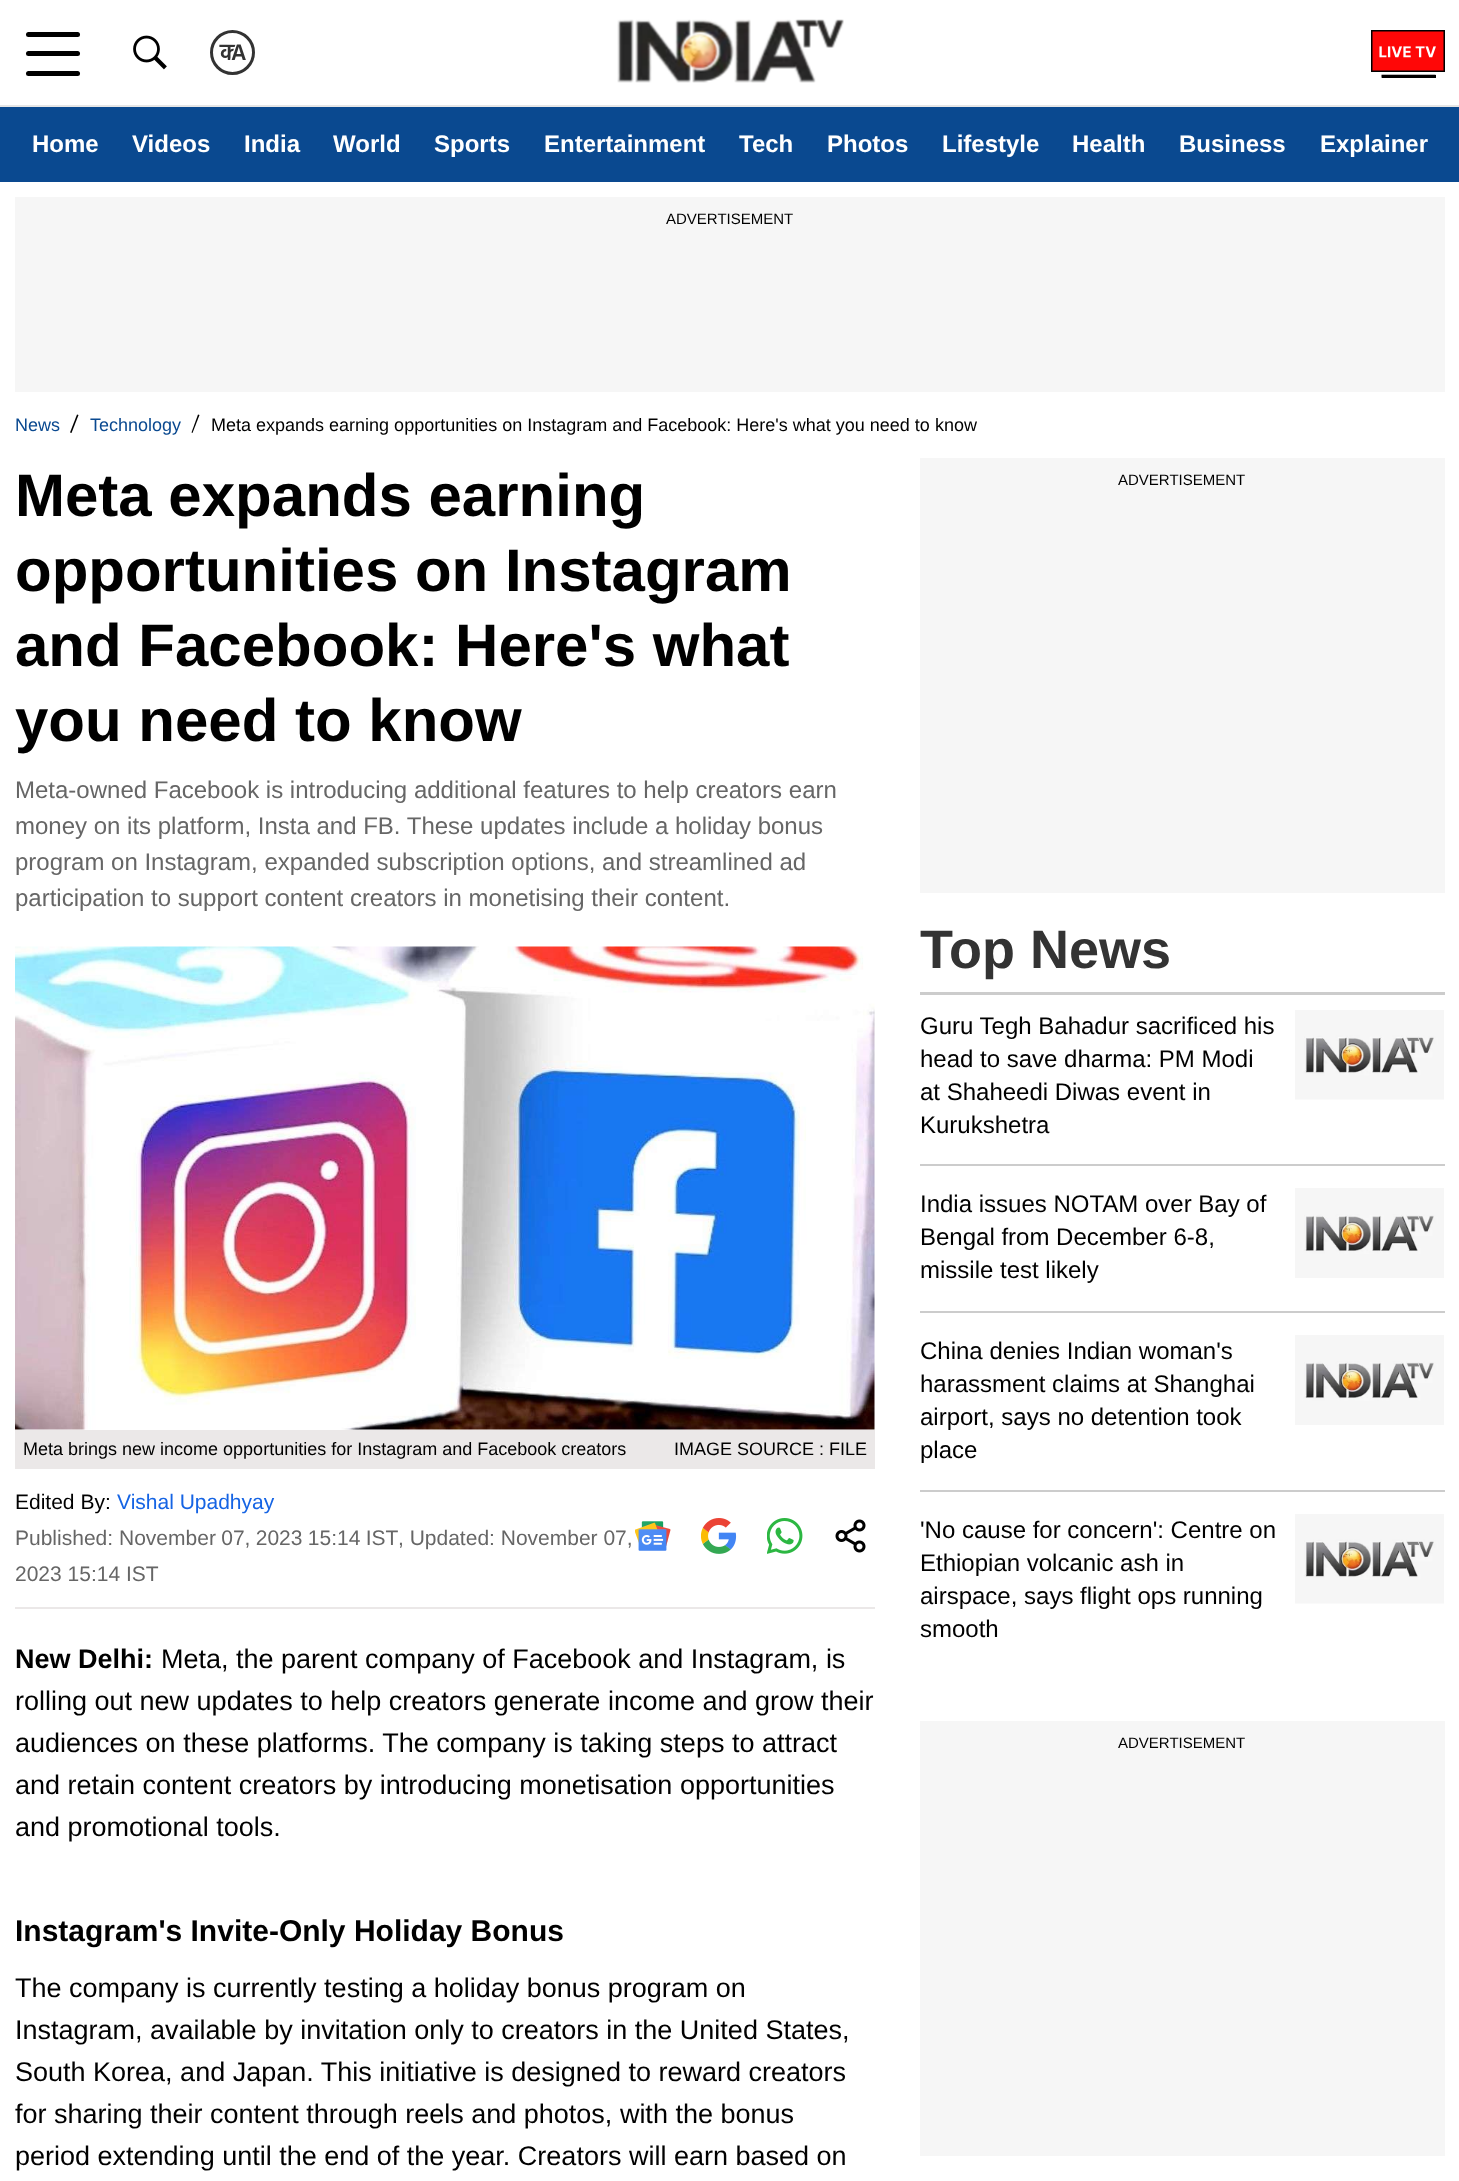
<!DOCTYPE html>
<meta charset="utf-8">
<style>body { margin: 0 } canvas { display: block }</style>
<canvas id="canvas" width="1459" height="2181"></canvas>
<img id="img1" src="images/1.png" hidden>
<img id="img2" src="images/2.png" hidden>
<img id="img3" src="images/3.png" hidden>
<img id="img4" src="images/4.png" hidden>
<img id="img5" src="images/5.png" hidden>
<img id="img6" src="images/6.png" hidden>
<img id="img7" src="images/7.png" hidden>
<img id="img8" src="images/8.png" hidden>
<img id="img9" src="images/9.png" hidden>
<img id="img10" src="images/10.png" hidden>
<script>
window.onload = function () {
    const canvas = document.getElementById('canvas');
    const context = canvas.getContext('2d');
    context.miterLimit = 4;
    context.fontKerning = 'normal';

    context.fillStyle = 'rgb(255, 255, 255)';
    context.fillRect(0, 0, 1459, 2181);
    context.fillStyle = 'rgb(230, 230, 230)';
    context.fillRect(0, 105, 1459, 2);
    context.fillStyle = 'rgb(0, 0, 0)';
    context.beginPath();
    context.roundRect(26, 32, 54, 5, 2.5);
    context.fill();
    context.beginPath();
    context.roundRect(26, 51, 54, 5, 2.5);
    context.fill();
    context.beginPath();
    context.roundRect(26, 71, 54, 5, 2.5);
    context.fill();
    context.drawImage(document.getElementById('img1'), 133, 35, 34, 35);
    context.beginPath();
    context.arc(232.5, 52.5, 21, 0, 2 * Math.PI);
    context.strokeStyle = 'rgb(51, 51, 51)';
    context.lineWidth = 3;
    context.stroke();
    context.drawImage(document.getElementById('img2'), 617, 19, 227, 64);
    context.drawImage(document.getElementById('img3'), 1371, 30, 74, 48);
    context.fillStyle = 'rgb(10, 73, 144)';
    context.fillRect(0, 107, 1459, 75);
    context.fillStyle = 'rgb(246, 246, 246)';
    context.fillRect(15, 197, 1430, 195);
    context.fillStyle = 'rgb(0, 0, 0)';
    context.beginPath();
    context.moveTo(77, 414.5);
    context.lineTo(78.5, 415);
    context.lineTo(71.5, 433);
    context.lineTo(70, 432.5);
    context.closePath();
    context.fill();
    context.beginPath();
    context.moveTo(198, 414.5);
    context.lineTo(199.5, 415);
    context.lineTo(192.5, 433);
    context.lineTo(191.5, 432.5);
    context.closePath();
    context.fill();
    context.drawImage(document.getElementById('img4'), 15, 946, 860, 484);
    context.fillStyle = 'rgb(235, 232, 232)';
    context.fillRect(15, 1430, 860, 39);
    context.fillRect(15, 1607, 860, 2);
    context.drawImage(document.getElementById('img5'), 635, 1521, 36, 30);
    context.drawImage(document.getElementById('img6'), 701, 1518, 36, 36);
    context.drawImage(document.getElementById('img7'), 767, 1518, 36, 36);
    context.drawImage(document.getElementById('img8'), 835, 1519, 31, 34);
    context.fillStyle = 'rgb(246, 246, 246)';
    context.fillRect(920, 458, 525, 435);
    context.fillStyle = 'rgb(204, 204, 204)';
    context.fillRect(920, 992, 525, 3);
    context.fillRect(920, 1164, 525, 2);
    context.drawImage(document.getElementById('img9'), 1295, 1010, 149, 90);
    context.fillRect(920, 1311, 525, 2);
    context.drawImage(document.getElementById('img10'), 1295, 1188, 149, 90);
    context.fillRect(920, 1490, 525, 2);
    context.drawImage(document.getElementById('img10'), 1295, 1335, 149, 90);
    context.drawImage(document.getElementById('img9'), 1295, 1514, 149, 90);
    context.fillStyle = 'rgb(246, 246, 246)';
    context.fillRect(920, 1721, 525, 435);
    context.font = '600 23px Hind';
    context.fillStyle = 'rgb(51, 51, 51)';
    context.fillText('A', 231, 60);
    context.save();
    context.beginPath();
    context.moveTo(235.5, 44.5);
    context.lineTo(231.5, 55.5);
    context.lineTo(230, 61);
    context.lineTo(217, 61);
    context.lineTo(216.5, 43.5);
    context.closePath();
    context.clip();
    context.fillText('क', 220, 60);
    context.restore();
    context.font = 'bold 24px Liberation Sans';
    context.fillStyle = 'rgb(255, 255, 255)';
    context.fillText('Home', 32, 152);
    context.fillText('Videos', 132, 152);
    context.fillText('India', 244, 152);
    context.fillText('World', 333, 152);
    context.fillText('Sports', 434, 152);
    context.fillText('Entertainment', 544, 152);
    context.fillText('Tech', 739, 152);
    context.fillText('Photos', 827, 152);
    context.fillText('Lifestyle', 942, 152);
    context.fillText('Health', 1072, 152);
    context.fillText('Business', 1179, 152);
    context.fillText('Explainer', 1320, 152);
    context.font = '15px Liberation Sans';
    context.fillStyle = 'rgb(0, 0, 0)';
    context.fillText('ADVERTISEMENT', 666, 224);
    context.font = '18px Liberation Sans';
    context.fillStyle = 'rgb(10, 73, 144)';
    context.fillText('News', 15, 431);
    context.fillText('Technology', 90, 431);
    context.fillStyle = 'rgb(0, 0, 0)';
    context.fillText('Meta expands earning opportunities on Instagram and Facebook: Here\'s what you need to know', 211, 431);
    context.font = 'bold 60px Liberation Sans';
    context.fillText('Meta expands earning', 15, 516);
    context.fillText('opportunities on Instagram', 15, 591);
    context.fillText('and Facebook: Here\'s what', 15, 666);
    context.fillText('you need to know', 15, 741);
    context.font = '24px Liberation Sans';
    context.fillStyle = 'rgb(102, 102, 102)';
    context.fillText('Meta-owned Facebook is introducing additional features to help creators earn', 15, 798);
    context.fillText('money on its platform, Insta and FB. These updates include a holiday bonus', 15, 834);
    context.fillText('program on Instagram, expanded subscription options, and streamlined ad', 15, 870);
    context.fillText('participation to support content creators in monetising their content.', 15, 906);
    context.font = '18px Liberation Sans';
    context.fillStyle = 'rgb(0, 0, 0)';
    context.fillText('Meta brings new income opportunities for Instagram and Facebook creators', 23, 1455);
    context.fillText('IMAGE SOURCE : FILE', 674, 1455);
    context.font = '21px Liberation Sans';
    context.fillText('Edited By:', 15, 1509);
    context.fillStyle = 'rgb(21, 100, 228)';
    context.fillText('Vishal Upadhyay', 117, 1509);
    context.fillStyle = 'rgb(102, 102, 102)';
    context.fillText('Published:', 15, 1545);
    context.wordSpacing = '-0.5px';
    context.fillText('November 07, 2023 15:14 IST', 119, 1545);
    context.wordSpacing = '0px';
    context.fillText(', Updated: November 07,', 398, 1545);
    context.fillText('2023 15:14 IST', 15, 1581);
    context.font = 'bold 27px Liberation Sans';
    context.fillStyle = 'rgb(0, 0, 0)';
    context.fillText('New Delhi:', 15, 1668);
    context.font = '27px Liberation Sans';
    context.fillText('Meta, the parent company of Facebook and Instagram, is', 161, 1668);
    context.fillText('rolling out new updates to help creators generate income and grow their', 15, 1710);
    context.fillText('audiences on these platforms. The company is taking steps to attract', 15, 1752);
    context.fillText('and retain content creators by introducing monetisation opportunities', 15, 1794);
    context.fillText('and promotional tools.', 15, 1836);
    context.font = 'bold 30px Liberation Sans';
    context.fillText('Instagram\'s Invite-Only Holiday Bonus', 15, 1941);
    context.font = '27px Liberation Sans';
    context.fillText('The company is currently testing a holiday bonus program on', 15, 1997);
    context.fillText('Instagram, available by invitation only to creators in the United States,', 15, 2039);
    context.fillText('South Korea, and Japan. This initiative is designed to reward creators', 15, 2081);
    context.fillText('for sharing their content through reels and photos, with the bonus', 15, 2123);
    context.fillText('period extending until the end of the year. Creators will earn based on', 15, 2165);
    context.font = '15px Liberation Sans';
    context.fillText('ADVERTISEMENT', 1118, 485);
    context.font = 'bold 54px Liberation Sans';
    context.fillStyle = 'rgb(51, 51, 51)';
    context.fillText('Top News', 920, 968);
    context.font = '24px Liberation Sans';
    context.fillStyle = 'rgb(0, 0, 0)';
    context.fillText('Guru Tegh Bahadur sacrificed his', 920, 1034);
    context.fillText('head to save dharma: PM Modi', 920, 1067);
    context.fillText('at Shaheedi Diwas event in', 920, 1100);
    context.fillText('Kurukshetra', 920, 1133);
    context.fillText('India issues NOTAM over Bay of', 920, 1212);
    context.fillText('Bengal from December 6-8,', 920, 1245);
    context.fillText('missile test likely', 920, 1278);
    context.fillText('China denies Indian woman\'s', 920, 1359);
    context.fillText('harassment claims at Shanghai', 920, 1392);
    context.fillText('airport, says no detention took', 920, 1425);
    context.fillText('place', 920, 1458);
    context.fillText('\'No cause for concern\': Centre on', 920, 1538);
    context.fillText('Ethiopian volcanic ash in', 920, 1571);
    context.fillText('airspace, says flight ops running', 920, 1604);
    context.fillText('smooth', 920, 1637);
    context.font = '15px Liberation Sans';
    context.fillText('ADVERTISEMENT', 1118, 1748);
};
</script>
